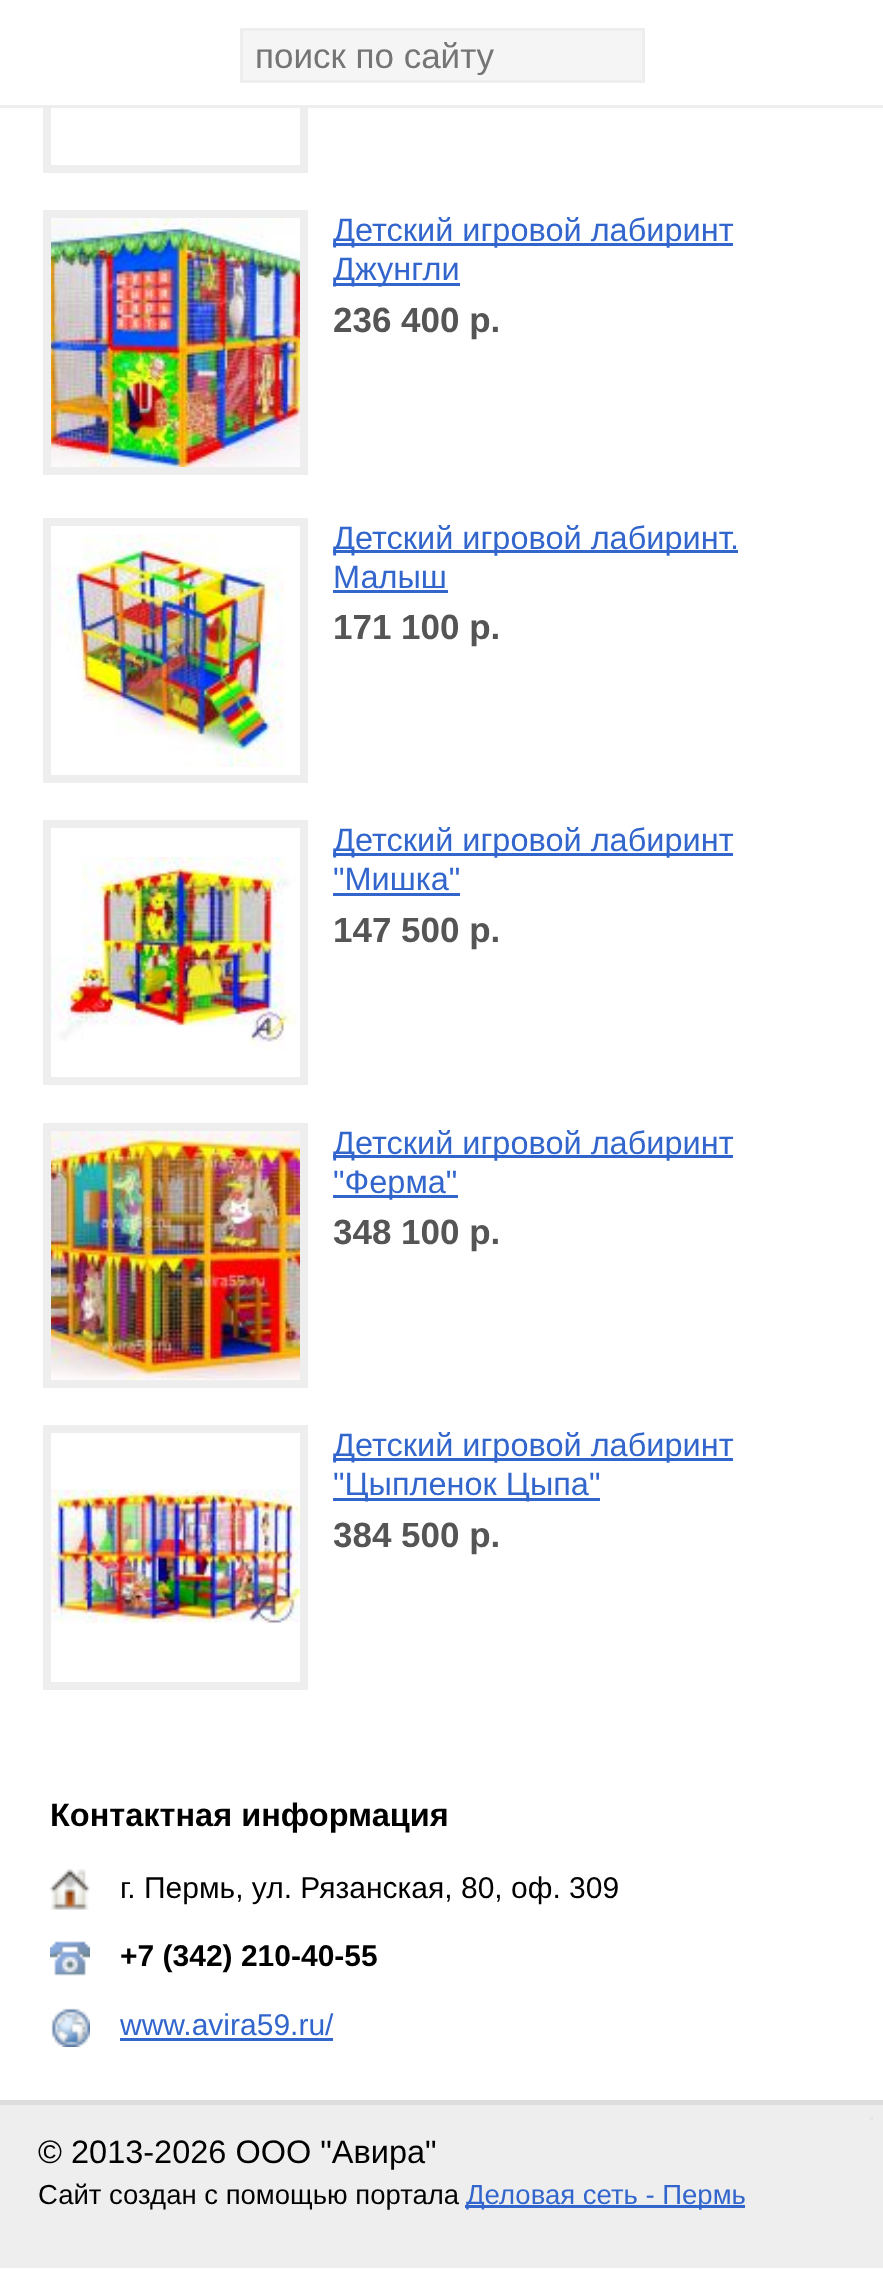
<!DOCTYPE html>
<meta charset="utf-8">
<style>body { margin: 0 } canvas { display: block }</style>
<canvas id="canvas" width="883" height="2270"></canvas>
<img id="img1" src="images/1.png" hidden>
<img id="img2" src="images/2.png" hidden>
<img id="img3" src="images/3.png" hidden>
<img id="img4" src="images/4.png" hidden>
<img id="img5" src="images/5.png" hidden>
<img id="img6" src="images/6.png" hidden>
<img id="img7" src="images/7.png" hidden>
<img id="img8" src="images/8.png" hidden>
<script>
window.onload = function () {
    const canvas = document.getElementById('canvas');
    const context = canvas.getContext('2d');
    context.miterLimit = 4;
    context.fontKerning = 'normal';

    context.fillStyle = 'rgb(255, 255, 255)';
    context.fillRect(0, 0, 883, 2270);
    context.strokeStyle = 'rgb(238, 238, 238)';
    context.lineWidth = 8;
    context.strokeRect(47, -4, 257, 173);
    context.fillRect(43, 0, 265, 105);
    context.fillStyle = 'rgb(238, 238, 238)';
    context.fillRect(0, 105, 883, 3);
    context.fillStyle = 'rgb(245, 245, 245)';
    context.beginPath();
    context.rect(241.5, 29.5, 402, 52);
    context.fill();
    context.lineWidth = 3;
    context.stroke();
    context.drawImage(document.getElementById('img1'), 51, 218, 249, 249);
    context.lineWidth = 8;
    context.strokeRect(47, 214, 257, 257);
    context.fillStyle = 'rgb(51, 102, 204)';
    context.fillRect(333, 243, 400, 3);
    context.fillRect(333, 283, 127, 3);
    context.drawImage(document.getElementById('img2'), 51, 534, 234, 233);
    context.strokeRect(47, 522, 257, 257);
    context.fillRect(333, 550, 405, 3);
    context.fillRect(333, 590, 115, 3);
    context.drawImage(document.getElementById('img3'), 51, 857, 247, 193);
    context.strokeRect(47, 824, 257, 257);
    context.fillRect(333, 853, 400, 3);
    context.fillRect(333, 893, 127, 3);
    context.drawImage(document.getElementById('img4'), 51, 1131, 249, 249);
    context.strokeRect(47, 1127, 257, 257);
    context.fillRect(333, 1155, 400, 3);
    context.fillRect(333, 1195, 125, 3);
    context.drawImage(document.getElementById('img5'), 51, 1489, 249, 136);
    context.strokeRect(47, 1429, 257, 257);
    context.fillRect(333, 1458, 400, 3);
    context.fillRect(333, 1498, 267, 3);
    context.drawImage(document.getElementById('img6'), 50, 1869, 40, 41);
    context.drawImage(document.getElementById('img7'), 50, 1941, 40, 35);
    context.drawImage(document.getElementById('img8'), 51, 2008, 39, 39);
    context.fillRect(120, 2038, 213, 3);
    context.fillStyle = 'rgb(238, 238, 238)';
    context.fillRect(0, 2105, 883, 163);
    context.fillStyle = 'rgb(221, 221, 221)';
    context.fillRect(0, 2100, 883, 5);
    context.fillStyle = 'rgb(230, 230, 230)';
    context.fillRect(870, 2117, 3, 3);
    context.fillStyle = 'rgb(51, 102, 204)';
    context.fillRect(465, 2205, 280, 3);
    context.save();
    context.beginPath();
    context.rect(255, 35, 375, 40);
    context.clip();
    context.font = '35px Liberation Sans';
    context.fillStyle = 'rgb(117, 117, 117)';
    context.fillText('поиск по сайту', 255, 68);
    context.restore();
    context.font = '32.5px Liberation Sans';
    context.fillText('Детский игровой лабиринт', 333, 241);
    context.fillText('Джунгли', 333, 280);
    context.font = 'bold 35px Liberation Sans';
    context.fillStyle = 'rgb(85, 85, 85)';
    context.fillText('236 400 р.', 333, 332);
    context.font = '32.5px Liberation Sans';
    context.fillStyle = 'rgb(51, 102, 204)';
    context.fillText('Детский игровой лабиринт.', 333, 549);
    context.fillText('Малыш', 333, 588);
    context.font = 'bold 35px Liberation Sans';
    context.fillStyle = 'rgb(85, 85, 85)';
    context.fillText('171 100 р.', 333, 639);
    context.font = '32.5px Liberation Sans';
    context.fillStyle = 'rgb(51, 102, 204)';
    context.fillText('Детский игровой лабиринт', 333, 851);
    context.fillText('"Мишка"', 333, 890);
    context.font = 'bold 35px Liberation Sans';
    context.fillStyle = 'rgb(85, 85, 85)';
    context.fillText('147 500 р.', 333, 942);
    context.font = '32.5px Liberation Sans';
    context.fillStyle = 'rgb(51, 102, 204)';
    context.fillText('Детский игровой лабиринт', 333, 1154);
    context.fillText('"Ферма"', 333, 1193);
    context.font = 'bold 35px Liberation Sans';
    context.fillStyle = 'rgb(85, 85, 85)';
    context.fillText('348 100 р.', 333, 1244);
    context.font = '32.5px Liberation Sans';
    context.fillStyle = 'rgb(51, 102, 204)';
    context.fillText('Детский игровой лабиринт', 333, 1456);
    context.fillText('"Цыпленок Цыпа"', 333, 1495);
    context.font = 'bold 35px Liberation Sans';
    context.fillStyle = 'rgb(85, 85, 85)';
    context.fillText('384 500 р.', 333, 1547);
    context.font = 'bold 32.5px Liberation Sans';
    context.fillStyle = 'rgb(0, 0, 0)';
    context.fillText('Контактная информация', 50, 1826);
    context.font = '30px Liberation Sans';
    context.fillText('г. Пермь, ул. Рязанская, 80, оф. 309', 120, 1898);
    context.font = 'bold 30px Liberation Sans';
    context.fillText('+7 (342) 210-40-55', 120, 1966);
    context.font = '30px Liberation Sans';
    context.fillStyle = 'rgb(51, 102, 204)';
    context.fillText('www.avira59.ru/', 120, 2035);
    context.font = '32.5px Liberation Sans';
    context.fillStyle = 'rgb(0, 0, 0)';
    context.fillText('© 2013-2026 ООО "Авира"', 38, 2163);
    context.font = '27.5px Liberation Sans';
    context.fillText('Сайт создан с помощью портала', 38, 2204);
    context.fillStyle = 'rgb(51, 102, 204)';
    context.fillText('Деловая сеть - Пермь', 466, 2204);
};
</script>
